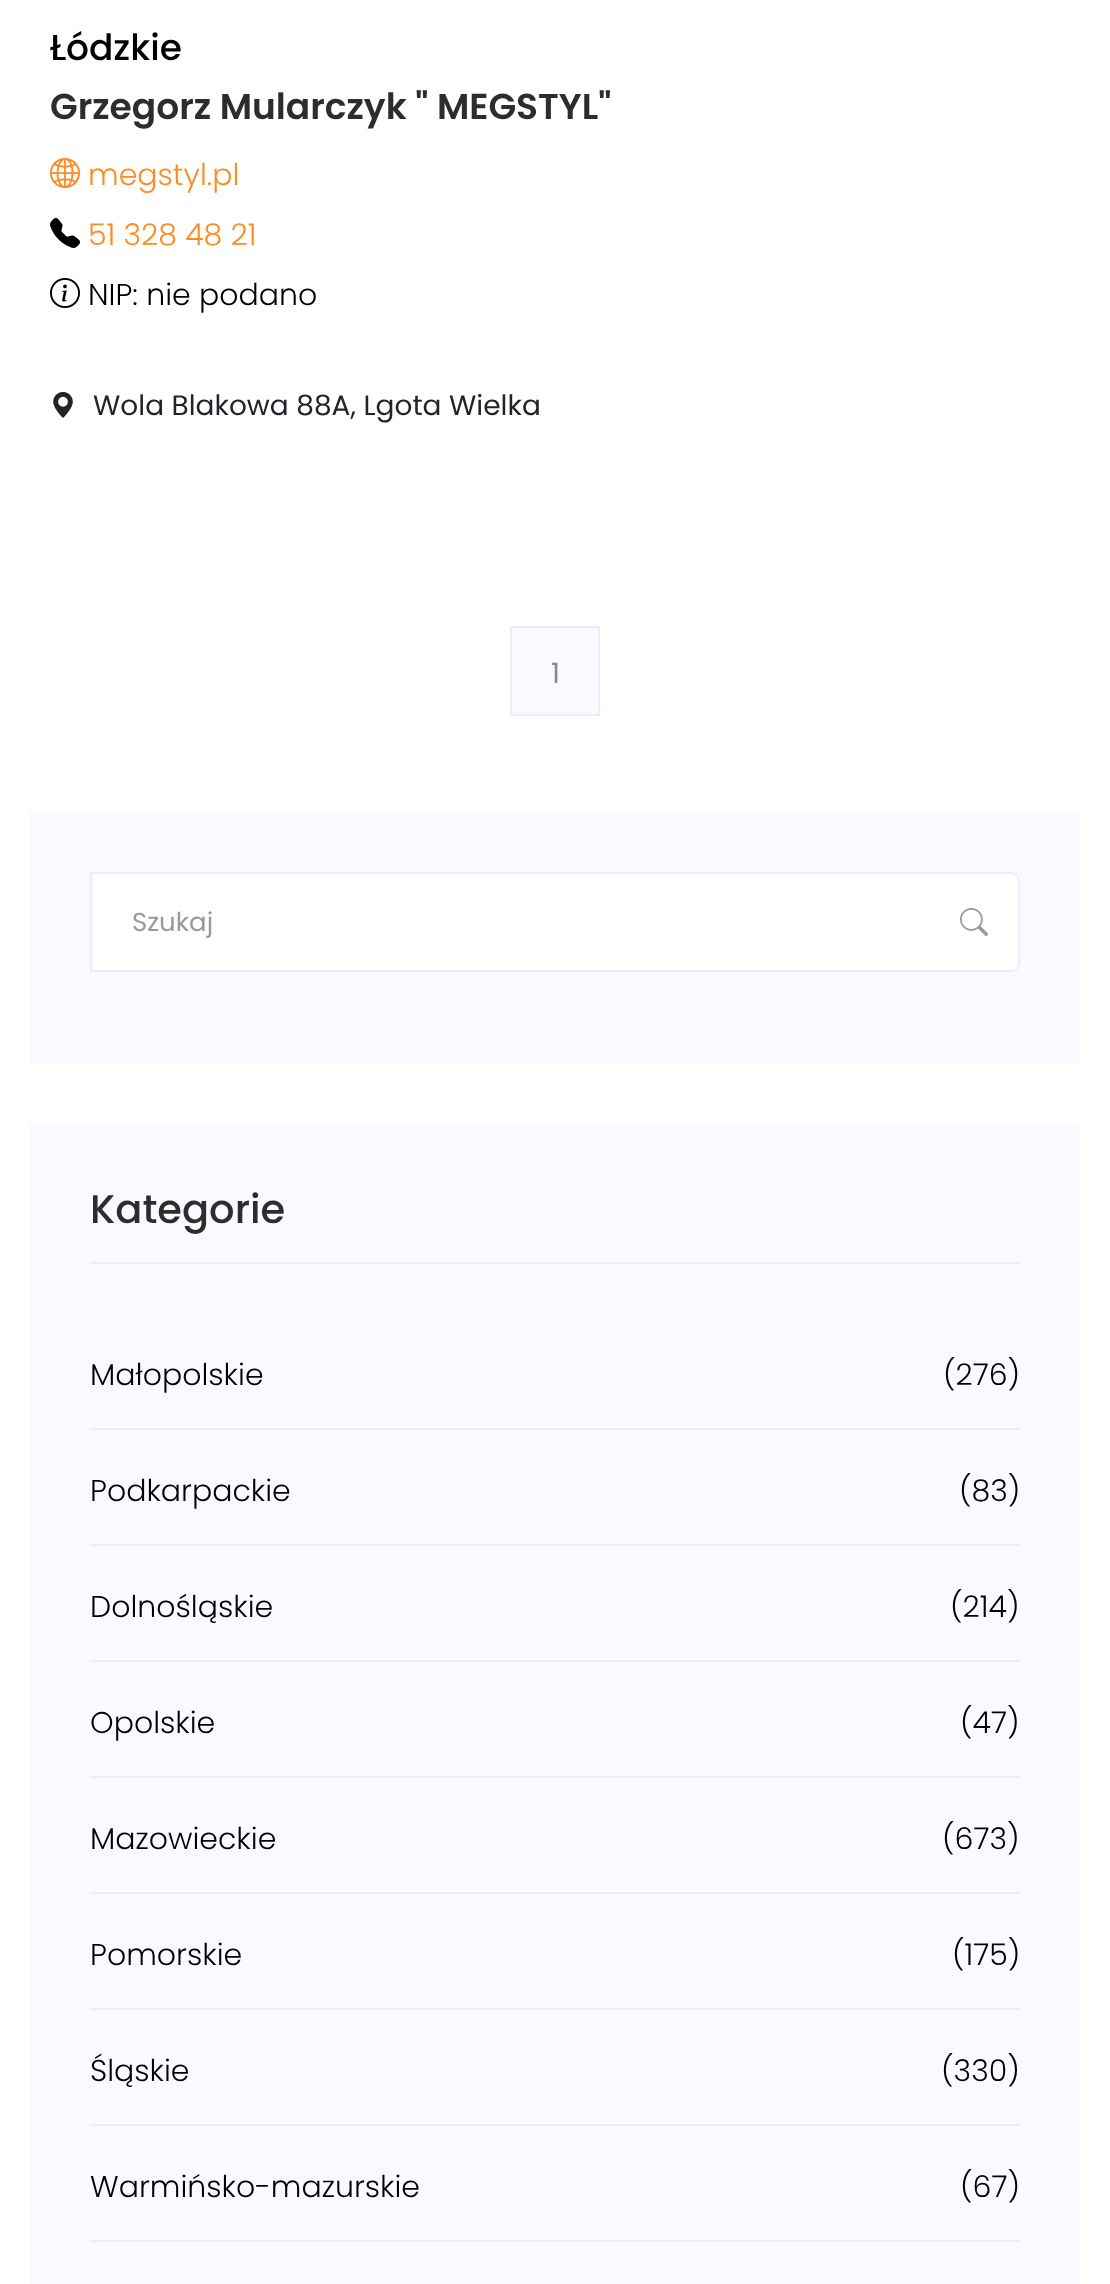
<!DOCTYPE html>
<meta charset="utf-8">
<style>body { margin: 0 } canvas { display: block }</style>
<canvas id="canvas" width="1110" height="2284"></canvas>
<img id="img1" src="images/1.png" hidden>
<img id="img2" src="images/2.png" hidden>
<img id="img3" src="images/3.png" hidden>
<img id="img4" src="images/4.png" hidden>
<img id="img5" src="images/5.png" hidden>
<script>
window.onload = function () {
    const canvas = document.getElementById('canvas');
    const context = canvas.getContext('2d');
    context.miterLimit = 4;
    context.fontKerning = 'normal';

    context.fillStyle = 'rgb(255, 255, 255)';
    context.fillRect(0, 0, 1110, 2284);
    context.drawImage(document.getElementById('img1'), 50, 158, 30, 30);
    context.drawImage(document.getElementById('img2'), 50, 218, 30, 30);
    context.drawImage(document.getElementById('img3'), 50, 278, 30, 30);
    context.drawImage(document.getElementById('img4'), 53, 392, 20, 26);
    context.fillStyle = 'rgb(251, 249, 255)';
    context.beginPath();
    context.rect(511, 627, 88, 88);
    context.fill();
    context.strokeStyle = 'rgb(240, 233, 255)';
    context.lineWidth = 2;
    context.stroke();
    context.fillRect(30, 812, 1050, 252);
    context.fillStyle = 'rgb(255, 255, 255)';
    context.fillRect(92, 874, 838, 96);
    context.fillStyle = 'rgb(240, 233, 255)';
    context.fillRect(90, 872, 842, 2);
    context.fillRect(90, 970, 842, 2);
    context.fillRect(90, 872, 2, 100);
    context.fillStyle = 'rgb(255, 255, 255)';
    context.beginPath();
    context.roundRect(930, 872, 90, 100, [0, 8, 8, 0]);
    context.fill();
    context.fillStyle = 'rgb(240, 233, 255)';
    context.beginPath();
    context.moveTo(930, 872);
    context.lineTo(1012, 872);
    context.bezierCurveTo(1016, 872, 1020, 876, 1020, 880);
    context.lineTo(1020, 964);
    context.bezierCurveTo(1020, 968, 1016, 972, 1012, 972);
    context.lineTo(930, 972);
    context.closePath();
    context.moveTo(930, 874);
    context.lineTo(1012, 874);
    context.bezierCurveTo(1015, 874, 1018, 877, 1018, 880);
    context.lineTo(1018, 964);
    context.bezierCurveTo(1018, 967, 1015, 970, 1012, 970);
    context.lineTo(930, 970);
    context.closePath();
    context.fill('evenodd');
    context.drawImage(document.getElementById('img5'), 960, 908, 28, 28);
    context.fillStyle = 'rgb(251, 249, 255)';
    context.fillRect(30, 1124, 1050, 1160);
    context.fillStyle = 'rgb(240, 233, 255)';
    context.fillRect(90, 1262, 930, 2);
    context.fillRect(90, 1428, 930, 2);
    context.fillRect(90, 1544, 930, 2);
    context.fillRect(90, 1660, 930, 2);
    context.fillRect(90, 1776, 930, 2);
    context.fillRect(90, 1892, 930, 2);
    context.fillRect(90, 2008, 930, 2);
    context.fillRect(90, 2124, 930, 2);
    context.fillRect(90, 2240, 930, 2);
    context.font = '500 36px Poppins';
    context.fillStyle = 'rgb(0, 0, 0)';
    context.fillText('Łódzkie', 50, 60);
    context.font = '600 36px Poppins';
    context.fillStyle = 'rgb(45, 45, 45)';
    context.fillText('Grzegorz Mularczyk " MEGSTYL"', 50, 119);
    context.font = '300 30px Poppins';
    context.fillStyle = 'rgb(255, 139, 35)';
    context.fillText('megstyl.pl', 88, 185);
    context.fillText('51 328 48 21', 88, 245);
    context.fillStyle = 'rgb(0, 0, 0)';
    context.fillText('NIP: nie podano', 88, 305);
    context.font = '28px Poppins';
    context.fillStyle = 'rgb(33, 37, 41)';
    context.fillText('Wola Blakowa 88A, Lgota Wielka', 93, 415);
    context.fillStyle = 'rgb(136, 136, 136)';
    context.fillText('1', 551, 683);
    context.font = '26px Poppins';
    context.fillStyle = 'rgb(153, 153, 153)';
    context.fillText('Szukaj', 132, 931);
    context.font = '500 40px Poppins';
    context.fillStyle = 'rgb(45, 45, 45)';
    context.fillText('Kategorie', 90, 1223);
    context.font = '300 30px Poppins';
    context.fillStyle = 'rgb(0, 0, 0)';
    context.fillText('Małopolskie', 90, 1385);
    context.fillText('(276)', 943, 1385);
    context.fillText('Podkarpackie', 90, 1501);
    context.fillText('(83)', 959, 1501);
    context.fillText('Dolnośląskie', 90, 1617);
    context.fillText('(214)', 950, 1617);
    context.fillText('Opolskie', 90, 1733);
    context.fillText('(47)', 960, 1733);
    context.fillText('Mazowieckie', 90, 1849);
    context.fillText('(673)', 942, 1849);
    context.fillText('Pomorskie', 90, 1965);
    context.fillText('(175)', 952, 1965);
    context.fillText('Śląskie', 90, 2081);
    context.fillText('(330)', 941, 2081);
    context.fillText('Warmińsko-mazurskie', 90, 2197);
    context.fillText('(67)', 960, 2197);
};
</script>
